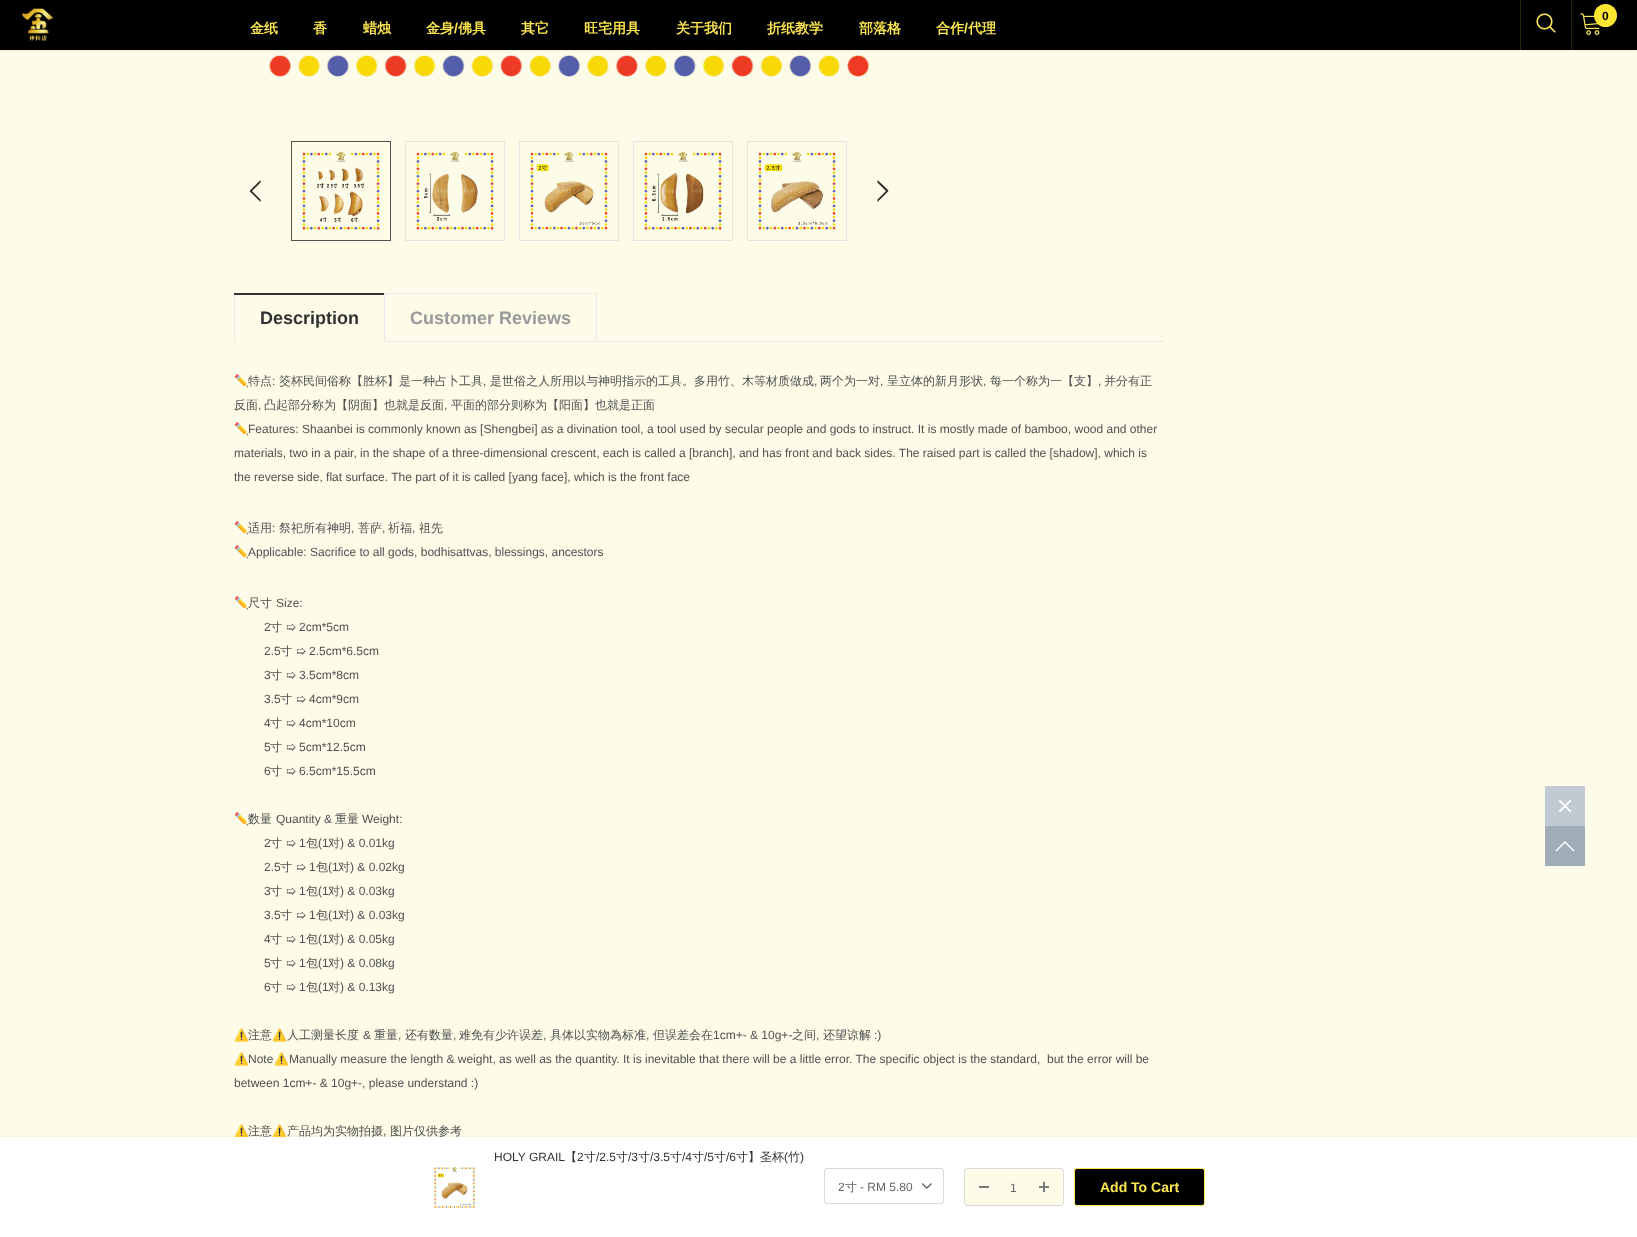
<!DOCTYPE html>
<meta charset="utf-8">
<style>body { margin: 0 } canvas { display: block }</style>
<canvas id="canvas" width="1637" height="1237"></canvas>
<img id="img1" src="images/4.png" hidden>
<img id="img2" src="images/1.png" hidden>
<img id="img3" src="images/2.png" hidden>
<img id="img4" src="images/3.png" hidden>
<img id="img5" src="images/5.png" hidden>
<img id="img6" src="images/6.png" hidden>
<img id="img7" src="images/7.png" hidden>
<img id="img8" src="images/8.png" hidden>
<img id="img9" src="images/9.png" hidden>
<img id="img10" src="images/12.png" hidden>
<img id="img11" src="images/10.png" hidden>
<img id="img12" src="images/11.png" hidden>
<script>
window.onload = function () {
    const canvas = document.getElementById('canvas');
    const context = canvas.getContext('2d');
    context.miterLimit = 4;
    context.fontKerning = 'normal';

    context.fillStyle = 'rgb(253, 252, 232)';
    context.fillRect(0, 0, 1637, 1237);
    context.drawImage(document.getElementById('img1'), 269, 55, 601, 22);
    context.fillStyle = 'rgba(0, 0, 0, 0.12)';
    context.filter = 'blur(1.5px)';
    context.beginPath();
    context.rect(0, 0, 1637, 50);
    context.fill();
    context.filter = 'none';
    context.fillStyle = 'rgb(0, 0, 0)';
    context.fillRect(0, 0, 1637, 50);
    context.drawImage(document.getElementById('img2'), 1580, 13, 20, 22);
    context.fillStyle = 'rgb(255, 230, 49)';
    context.beginPath();
    context.arc(1605.5, 15.5, 11.5, 0, 2 * Math.PI);
    context.fill();
    context.drawImage(document.getElementById('img3'), 22, 8, 31, 33);
    context.fillStyle = 'rgb(38, 35, 12)';
    context.fillRect(1520, 0, 1, 50);
    context.drawImage(document.getElementById('img4'), 1536, 13, 20, 20);
    context.fillRect(1571, 0, 1, 50);
    context.fillStyle = 'rgb(45, 45, 45)';
    context.beginPath();
    context.moveTo(249.5, 191);
    context.lineTo(260.5, 202);
    context.lineTo(260.5, 199.5);
    context.lineTo(252, 191);
    context.lineTo(260.5, 182.5);
    context.lineTo(260.5, 180);
    context.closePath();
    context.fill();
    context.strokeStyle = 'rgb(81, 81, 81)';
    context.strokeRect(291.5, 141.5, 99, 99);
    context.drawImage(document.getElementById('img5'), 302, 152, 78, 78);
    context.strokeStyle = 'rgb(228, 228, 228)';
    context.strokeRect(405.5, 141.5, 99, 99);
    context.drawImage(document.getElementById('img6'), 416, 152, 78, 78);
    context.strokeRect(519.5, 141.5, 99, 99);
    context.drawImage(document.getElementById('img7'), 530, 152, 78, 78);
    context.strokeRect(633.5, 141.5, 99, 99);
    context.drawImage(document.getElementById('img8'), 644, 152, 78, 78);
    context.strokeRect(747.5, 141.5, 99, 99);
    context.drawImage(document.getElementById('img9'), 758, 152, 78, 78);
    context.beginPath();
    context.moveTo(887.5, 189.5);
    context.lineTo(877.5, 180);
    context.lineTo(877.5, 182.5);
    context.lineTo(886, 191);
    context.lineTo(877.5, 199.5);
    context.lineTo(877.5, 202);
    context.lineTo(888.5, 191);
    context.closePath();
    context.fill();
    context.fillStyle = 'rgb(232, 234, 235)';
    context.fillRect(234, 341, 930, 1);
    context.fillRect(234, 293, 1, 48);
    context.fillStyle = 'rgb(52, 49, 58)';
    context.fillRect(234, 293, 151, 2);
    context.fillStyle = 'rgb(253, 252, 232)';
    context.fillRect(235, 341, 149, 1);
    context.fillStyle = 'rgb(232, 234, 235)';
    context.fillRect(384, 293, 213, 1);
    context.fillRect(596, 293, 1, 48);
    context.fillRect(384, 293, 1, 48);
    context.fillStyle = 'rgba(0, 0, 0, 0.1)';
    context.filter = 'blur(1.5px)';
    context.beginPath();
    context.rect(3, 1137, 1631, 94);
    context.fill();
    context.filter = 'none';
    context.fillStyle = 'rgb(193, 202, 210)';
    context.fillRect(1545, 786, 40, 40);
    context.drawImage(document.getElementById('img10'), 1558, 799, 14, 14);
    context.fillStyle = 'rgb(160, 172, 183)';
    context.fillRect(1545, 826, 40, 40);
    context.fillStyle = 'rgb(255, 255, 255)';
    context.beginPath();
    context.moveTo(1565, 843);
    context.lineTo(1573, 851);
    context.lineTo(1575, 851);
    context.lineTo(1565, 841);
    context.lineTo(1555, 851);
    context.lineTo(1557, 851);
    context.closePath();
    context.fill();
    context.font = 'bold 12px Arimo';
    context.fillStyle = 'rgb(0, 0, 0)';
    context.fillText('0', 1602, 20);
    context.font = 'bold 14px WenQuanYi Zen Hei';
    context.fillStyle = 'rgb(252, 231, 80)';
    context.fillText('金纸', 250, 33);
    context.fillText('香', 313, 33);
    context.fillText('蜡烛', 363, 33);
    context.fillText('金身', 426, 33);
    context.font = 'bold 14px Arimo';
    context.fillText('/', 454, 33);
    context.font = 'bold 14px WenQuanYi Zen Hei';
    context.fillText('佛具', 458, 33);
    context.fillText('其它', 521, 33);
    context.fillText('旺宅用具', 584, 33);
    context.fillText('关于我们', 676, 33);
    context.fillText('折纸教学', 767, 33);
    context.fillText('部落格', 859, 33);
    context.fillText('合作', 936, 33);
    context.font = 'bold 14px Arimo';
    context.fillText('/', 964, 33);
    context.font = 'bold 14px WenQuanYi Zen Hei';
    context.fillText('代理', 968, 33);
    context.font = 'bold 18px Arimo';
    context.fillStyle = 'rgb(50, 50, 50)';
    context.fillText('Description', 260, 324);
    context.fillStyle = 'rgb(153, 153, 153)';
    context.fillText('Customer Reviews', 410, 324);
    context.font = '12px Noto Color Emoji';
    context.fillStyle = 'rgb(80, 80, 80)';
    context.fillText('✏️', 234, 385);
    context.font = '500 12px WenQuanYi Zen Hei';
    context.fillText('特点', 248, 385);
    context.font = '12px Arimo';
    context.fillText(':', 272, 385);
    context.font = '500 12px WenQuanYi Zen Hei';
    context.fillText('筊杯民间俗称【胜杯】是一种占卜工具', 279, 385);
    context.font = '12px Arimo';
    context.fillText(',', 483, 385);
    context.font = '500 12px WenQuanYi Zen Hei';
    context.fillText('是世俗之人所用以与神明指示的工具。多用竹、木等材质做成', 490, 385);
    context.font = '12px Arimo';
    context.fillText(',', 814, 385);
    context.font = '500 12px WenQuanYi Zen Hei';
    context.fillText('两个为一对', 820, 385);
    context.font = '12px Arimo';
    context.fillText(',', 880, 385);
    context.font = '500 12px WenQuanYi Zen Hei';
    context.fillText('呈立体的新月形状', 887, 385);
    context.font = '12px Arimo';
    context.fillText(',', 983, 385);
    context.font = '500 12px WenQuanYi Zen Hei';
    context.fillText('每一个称为一【支】', 990, 385);
    context.font = '12px Arimo';
    context.fillText(',', 1098, 385);
    context.font = '500 12px WenQuanYi Zen Hei';
    context.fillText('并分有正', 1104, 385);
    context.fillText('反面', 234, 409);
    context.font = '12px Arimo';
    context.fillText(',', 258, 409);
    context.font = '500 12px WenQuanYi Zen Hei';
    context.fillText('凸起部分称为【阴面】也就是反面', 264, 409);
    context.font = '12px Arimo';
    context.fillText(',', 444, 409);
    context.font = '500 12px WenQuanYi Zen Hei';
    context.fillText('平面的部分则称为【阳面】也就是正面', 451, 409);
    context.font = '12px Noto Color Emoji';
    context.fillText('✏️', 234, 433);
    context.font = '12px Arimo';
    context.fillText('Features: Shaanbei is commonly known as [Shengbei] as a divination tool, a tool used by secular people and gods to instruct. It is mostly made of bamboo, wood and other', 248, 433);
    context.fillText('materials, two in a pair, in the shape of a three-dimensional crescent, each is called a [branch], and has front and back sides. The raised part is called the [shadow], which is', 234, 457);
    context.fillText('the reverse side, flat surface. The part of it is called [yang face], which is the front face', 234, 481);
    context.font = '12px Noto Color Emoji';
    context.fillText('✏️', 234, 532);
    context.font = '500 12px WenQuanYi Zen Hei';
    context.fillText('适用', 248, 532);
    context.font = '12px Arimo';
    context.fillText(':', 272, 532);
    context.font = '500 12px WenQuanYi Zen Hei';
    context.fillText('祭祀所有神明', 279, 532);
    context.font = '12px Arimo';
    context.fillText(',', 351, 532);
    context.font = '500 12px WenQuanYi Zen Hei';
    context.fillText('菩萨', 358, 532);
    context.font = '12px Arimo';
    context.fillText(',', 382, 532);
    context.font = '500 12px WenQuanYi Zen Hei';
    context.fillText('祈福', 388, 532);
    context.font = '12px Arimo';
    context.fillText(',', 412, 532);
    context.font = '500 12px WenQuanYi Zen Hei';
    context.fillText('祖先', 419, 532);
    context.font = '12px Noto Color Emoji';
    context.fillText('✏️', 234, 556);
    context.font = '12px Arimo';
    context.fillText('Applicable: Sacrifice to all gods, bodhisattvas, blessings, ancestors', 248, 556);
    context.font = '12px Noto Color Emoji';
    context.fillText('✏️', 234, 607);
    context.font = '500 12px WenQuanYi Zen Hei';
    context.fillText('尺寸', 248, 607);
    context.font = '12px Arimo';
    context.fillText('Size:', 276, 607);
    context.fillText('2', 264, 631);
    context.font = '500 12px WenQuanYi Zen Hei';
    context.fillText('寸', 270, 631);
    context.font = '12px DejaVu Sans';
    context.fillText('➯', 286, 631);
    context.font = '12px Arimo';
    context.fillText('2cm*5cm', 299, 631);
    context.fillText('2.5', 264, 655);
    context.font = '500 12px WenQuanYi Zen Hei';
    context.fillText('寸', 280, 655);
    context.font = '12px DejaVu Sans';
    context.fillText('➯', 296, 655);
    context.font = '12px Arimo';
    context.fillText('2.5cm*6.5cm', 309, 655);
    context.fillText('3', 264, 679);
    context.font = '500 12px WenQuanYi Zen Hei';
    context.fillText('寸', 270, 679);
    context.font = '12px DejaVu Sans';
    context.fillText('➯', 286, 679);
    context.font = '12px Arimo';
    context.fillText('3.5cm*8cm', 299, 679);
    context.fillText('3.5', 264, 703);
    context.font = '500 12px WenQuanYi Zen Hei';
    context.fillText('寸', 280, 703);
    context.font = '12px DejaVu Sans';
    context.fillText('➯', 296, 703);
    context.font = '12px Arimo';
    context.fillText('4cm*9cm', 309, 703);
    context.fillText('4', 264, 727);
    context.font = '500 12px WenQuanYi Zen Hei';
    context.fillText('寸', 270, 727);
    context.font = '12px DejaVu Sans';
    context.fillText('➯', 286, 727);
    context.font = '12px Arimo';
    context.fillText('4cm*10cm', 299, 727);
    context.fillText('5', 264, 751);
    context.font = '500 12px WenQuanYi Zen Hei';
    context.fillText('寸', 270, 751);
    context.font = '12px DejaVu Sans';
    context.fillText('➯', 286, 751);
    context.font = '12px Arimo';
    context.fillText('5cm*12.5cm', 299, 751);
    context.fillText('6', 264, 775);
    context.font = '500 12px WenQuanYi Zen Hei';
    context.fillText('寸', 270, 775);
    context.font = '12px DejaVu Sans';
    context.fillText('➯', 286, 775);
    context.font = '12px Arimo';
    context.fillText('6.5cm*15.5cm', 299, 775);
    context.font = '12px Noto Color Emoji';
    context.fillText('✏️', 234, 823);
    context.font = '500 12px WenQuanYi Zen Hei';
    context.fillText('数量', 248, 823);
    context.font = '12px Arimo';
    context.fillText('Quantity &', 276, 823);
    context.font = '500 12px WenQuanYi Zen Hei';
    context.fillText('重量', 335, 823);
    context.font = '12px Arimo';
    context.fillText('Weight:', 362, 823);
    context.fillText('2', 264, 847);
    context.font = '500 12px WenQuanYi Zen Hei';
    context.fillText('寸', 270, 847);
    context.font = '12px DejaVu Sans';
    context.fillText('➯', 286, 847);
    context.font = '12px Arimo';
    context.fillText('1', 299, 847);
    context.font = '500 12px WenQuanYi Zen Hei';
    context.fillText('包', 306, 847);
    context.font = '12px Arimo';
    context.fillText('(1', 318, 847);
    context.font = '500 12px WenQuanYi Zen Hei';
    context.fillText('对', 328, 847);
    context.font = '12px Arimo';
    context.fillText(') & 0.01kg', 340, 847);
    context.fillText('2.5', 264, 871);
    context.font = '500 12px WenQuanYi Zen Hei';
    context.fillText('寸', 280, 871);
    context.font = '12px DejaVu Sans';
    context.fillText('➯', 296, 871);
    context.font = '12px Arimo';
    context.fillText('1', 309, 871);
    context.font = '500 12px WenQuanYi Zen Hei';
    context.fillText('包', 316, 871);
    context.font = '12px Arimo';
    context.fillText('(1', 328, 871);
    context.font = '500 12px WenQuanYi Zen Hei';
    context.fillText('对', 338, 871);
    context.font = '12px Arimo';
    context.fillText(') & 0.02kg', 350, 871);
    context.fillText('3', 264, 895);
    context.font = '500 12px WenQuanYi Zen Hei';
    context.fillText('寸', 270, 895);
    context.font = '12px DejaVu Sans';
    context.fillText('➯', 286, 895);
    context.font = '12px Arimo';
    context.fillText('1', 299, 895);
    context.font = '500 12px WenQuanYi Zen Hei';
    context.fillText('包', 306, 895);
    context.font = '12px Arimo';
    context.fillText('(1', 318, 895);
    context.font = '500 12px WenQuanYi Zen Hei';
    context.fillText('对', 328, 895);
    context.font = '12px Arimo';
    context.fillText(') & 0.03kg', 340, 895);
    context.fillText('3.5', 264, 919);
    context.font = '500 12px WenQuanYi Zen Hei';
    context.fillText('寸', 280, 919);
    context.font = '12px DejaVu Sans';
    context.fillText('➯', 296, 919);
    context.font = '12px Arimo';
    context.fillText('1', 309, 919);
    context.font = '500 12px WenQuanYi Zen Hei';
    context.fillText('包', 316, 919);
    context.font = '12px Arimo';
    context.fillText('(1', 328, 919);
    context.font = '500 12px WenQuanYi Zen Hei';
    context.fillText('对', 338, 919);
    context.font = '12px Arimo';
    context.fillText(') & 0.03kg', 350, 919);
    context.fillText('4', 264, 943);
    context.font = '500 12px WenQuanYi Zen Hei';
    context.fillText('寸', 270, 943);
    context.font = '12px DejaVu Sans';
    context.fillText('➯', 286, 943);
    context.font = '12px Arimo';
    context.fillText('1', 299, 943);
    context.font = '500 12px WenQuanYi Zen Hei';
    context.fillText('包', 306, 943);
    context.font = '12px Arimo';
    context.fillText('(1', 318, 943);
    context.font = '500 12px WenQuanYi Zen Hei';
    context.fillText('对', 328, 943);
    context.font = '12px Arimo';
    context.fillText(') & 0.05kg', 340, 943);
    context.fillText('5', 264, 967);
    context.font = '500 12px WenQuanYi Zen Hei';
    context.fillText('寸', 270, 967);
    context.font = '12px DejaVu Sans';
    context.fillText('➯', 286, 967);
    context.font = '12px Arimo';
    context.fillText('1', 299, 967);
    context.font = '500 12px WenQuanYi Zen Hei';
    context.fillText('包', 306, 967);
    context.font = '12px Arimo';
    context.fillText('(1', 318, 967);
    context.font = '500 12px WenQuanYi Zen Hei';
    context.fillText('对', 328, 967);
    context.font = '12px Arimo';
    context.fillText(') & 0.08kg', 340, 967);
    context.fillText('6', 264, 991);
    context.font = '500 12px WenQuanYi Zen Hei';
    context.fillText('寸', 270, 991);
    context.font = '12px DejaVu Sans';
    context.fillText('➯', 286, 991);
    context.font = '12px Arimo';
    context.fillText('1', 299, 991);
    context.font = '500 12px WenQuanYi Zen Hei';
    context.fillText('包', 306, 991);
    context.font = '12px Arimo';
    context.fillText('(1', 318, 991);
    context.font = '500 12px WenQuanYi Zen Hei';
    context.fillText('对', 328, 991);
    context.font = '12px Arimo';
    context.fillText(') & 0.13kg', 340, 991);
    context.font = '12px Noto Color Emoji';
    context.fillText('⚠️', 234, 1039);
    context.font = '500 12px WenQuanYi Zen Hei';
    context.fillText('注意', 248, 1039);
    context.font = '12px Noto Color Emoji';
    context.fillText('⚠️', 272, 1039);
    context.font = '500 12px WenQuanYi Zen Hei';
    context.fillText('人工测量长度', 287, 1039);
    context.font = '12px Arimo';
    context.fillText('&', 363, 1039);
    context.font = '500 12px WenQuanYi Zen Hei';
    context.fillText('重量', 374, 1039);
    context.font = '12px Arimo';
    context.fillText(',', 398, 1039);
    context.font = '500 12px WenQuanYi Zen Hei';
    context.fillText('还有数量', 405, 1039);
    context.font = '12px Arimo';
    context.fillText(',', 453, 1039);
    context.font = '500 12px WenQuanYi Zen Hei';
    context.fillText('难免有少许误差', 459, 1039);
    context.font = '12px Arimo';
    context.fillText(',', 543, 1039);
    context.font = '500 12px WenQuanYi Zen Hei';
    context.fillText('具体以实物為标准', 550, 1039);
    context.font = '12px Arimo';
    context.fillText(',', 646, 1039);
    context.font = '500 12px WenQuanYi Zen Hei';
    context.fillText('但误差会在', 653, 1039);
    context.font = '12px Arimo';
    context.fillText('1cm+- & 10g+-', 713, 1039);
    context.font = '500 12px WenQuanYi Zen Hei';
    context.fillText('之间', 792, 1039);
    context.font = '12px Arimo';
    context.fillText(',', 816, 1039);
    context.font = '500 12px WenQuanYi Zen Hei';
    context.fillText('还望谅解', 823, 1039);
    context.font = '12px Arimo';
    context.fillText(':)', 874, 1039);
    context.font = '12px Noto Color Emoji';
    context.fillText('⚠️', 234, 1063);
    context.font = '12px Arimo';
    context.fillText('Note', 248, 1063);
    context.font = '12px Noto Color Emoji';
    context.fillText('⚠️', 274, 1063);
    context.font = '12px Arimo';
    context.fillText('Manually measure the length & weight, as well as the quantity. It is inevitable that there will be a little error. The specific object is the standard,  but the error will be', 289, 1063);
    context.fillText('between 1cm+- & 10g+-, please understand :)', 234, 1087);
    context.font = '12px Noto Color Emoji';
    context.fillText('⚠️', 234, 1135);
    context.font = '500 12px WenQuanYi Zen Hei';
    context.fillText('注意', 248, 1135);
    context.font = '12px Noto Color Emoji';
    context.fillText('⚠️', 272, 1135);
    context.font = '500 12px WenQuanYi Zen Hei';
    context.fillText('产品均为实物拍摄', 287, 1135);
    context.font = '12px Arimo';
    context.fillText(',', 383, 1135);
    context.font = '500 12px WenQuanYi Zen Hei';
    context.fillText('图片仅供参考', 390, 1135);
    context.fillStyle = 'rgb(255, 255, 255)';
    context.fillRect(0, 1137, 1637, 100);
    context.font = '12px Arimo';
    context.fillStyle = 'rgb(50, 50, 50)';
    context.fillText('HOLY GRAIL', 494, 1161);
    context.font = '500 12px WenQuanYi Zen Hei';
    context.fillText('【', 565, 1161);
    context.font = '12px Arimo';
    context.fillText('2', 577, 1161);
    context.font = '500 12px WenQuanYi Zen Hei';
    context.fillText('寸', 584, 1161);
    context.font = '12px Arimo';
    context.fillText('/2.5', 596, 1161);
    context.font = '500 12px WenQuanYi Zen Hei';
    context.fillText('寸', 616, 1161);
    context.font = '12px Arimo';
    context.fillText('/3', 628, 1161);
    context.font = '500 12px WenQuanYi Zen Hei';
    context.fillText('寸', 638, 1161);
    context.font = '12px Arimo';
    context.fillText('/3.5', 650, 1161);
    context.font = '500 12px WenQuanYi Zen Hei';
    context.fillText('寸', 670, 1161);
    context.font = '12px Arimo';
    context.fillText('/4', 682, 1161);
    context.font = '500 12px WenQuanYi Zen Hei';
    context.fillText('寸', 692, 1161);
    context.font = '12px Arimo';
    context.fillText('/5', 704, 1161);
    context.font = '500 12px WenQuanYi Zen Hei';
    context.fillText('寸', 714, 1161);
    context.font = '12px Arimo';
    context.fillText('/6', 726, 1161);
    context.font = '500 12px WenQuanYi Zen Hei';
    context.fillText('寸】圣杯', 736, 1161);
    context.font = '12px Arimo';
    context.fillText('(', 784, 1161);
    context.font = '500 12px WenQuanYi Zen Hei';
    context.fillText('竹', 788, 1161);
    context.font = '12px Arimo';
    context.fillText(')', 800, 1161);
    context.drawImage(document.getElementById('img11'), 434, 1167, 41, 41);
    context.beginPath();
    context.roundRect(824.5, 1168.5, 119, 35, 2.5);
    context.strokeStyle = 'rgb(218, 218, 218)';
    context.stroke();
    context.fillStyle = 'rgb(100, 100, 100)';
    context.fillText('2', 838, 1191);
    context.font = '500 12px WenQuanYi Zen Hei';
    context.fillText('寸', 845, 1191);
    context.font = '12px Arimo';
    context.fillText('- RM 5.80', 860, 1191);
    context.drawImage(document.getElementById('img12'), 921, 1183, 11, 6);
    context.fillStyle = 'rgb(253, 252, 232)';
    context.beginPath();
    context.roundRect(964.5, 1168.5, 99, 37, 2.5);
    context.fill();
    context.stroke();
    context.fillStyle = 'rgb(123, 123, 123)';
    context.fillRect(979, 1186, 10, 2);
    context.fillStyle = 'rgb(100, 100, 100)';
    context.fillText('1', 1010, 1192);
    context.fillStyle = 'rgb(123, 123, 123)';
    context.fillRect(1039, 1186, 10, 2);
    context.fillRect(1043, 1182, 2, 10);
    context.fillStyle = 'rgb(0, 0, 0)';
    context.beginPath();
    context.roundRect(1074.5, 1168.5, 130, 37, 2.5);
    context.fill();
    context.strokeStyle = 'rgb(252, 231, 80)';
    context.stroke();
    context.font = 'bold 14px Arimo';
    context.fillStyle = 'rgb(252, 231, 80)';
    context.fillText('Add To Cart', 1100, 1192);
};
</script>
